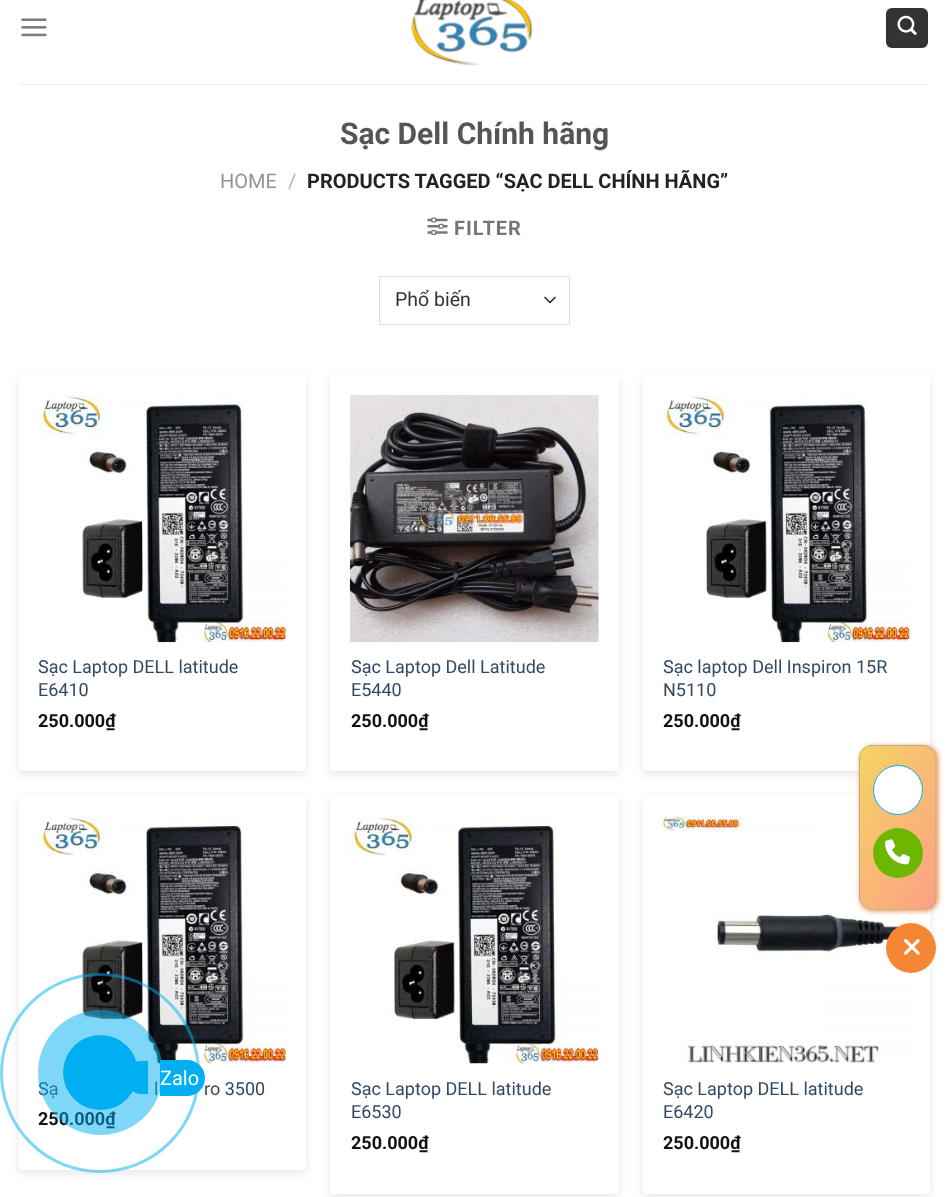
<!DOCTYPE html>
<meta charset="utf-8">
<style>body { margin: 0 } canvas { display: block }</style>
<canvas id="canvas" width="948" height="1197"></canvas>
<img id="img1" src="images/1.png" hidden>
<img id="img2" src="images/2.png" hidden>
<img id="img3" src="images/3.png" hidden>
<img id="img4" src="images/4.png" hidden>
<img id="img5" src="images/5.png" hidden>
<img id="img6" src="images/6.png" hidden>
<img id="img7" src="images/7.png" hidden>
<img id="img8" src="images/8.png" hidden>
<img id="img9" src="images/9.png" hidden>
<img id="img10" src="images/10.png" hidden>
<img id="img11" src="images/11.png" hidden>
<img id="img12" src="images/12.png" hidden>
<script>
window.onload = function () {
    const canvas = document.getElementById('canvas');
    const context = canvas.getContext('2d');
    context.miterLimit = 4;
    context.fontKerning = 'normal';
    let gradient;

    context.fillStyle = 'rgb(255, 255, 255)';
    context.fillRect(0, 0, 948, 1197);
    context.drawImage(document.getElementById('img1'), 21, 18, 26, 19);
    context.drawImage(document.getElementById('img2'), 411, 0, 122, 66);
    context.fillStyle = 'rgb(51, 51, 51)';
    context.beginPath();
    context.roundRect(886, 8, 42, 40, 6);
    context.fill();
    context.strokeStyle = 'rgba(0, 0, 0, 0.05)';
    context.strokeRect(886.5, 8.5, 41, 39);
    context.drawImage(document.getElementById('img3'), 897, 15, 20, 20);
    context.fillStyle = 'rgb(241, 241, 241)';
    context.fillRect(19, 84, 911, 1);
    context.drawImage(document.getElementById('img4'), 427, 217, 21, 18);
    context.beginPath();
    context.moveTo(545, 297.5);
    context.lineTo(550, 302.5);
    context.lineTo(555, 297.5);
    context.strokeStyle = 'rgb(51, 51, 51)';
    context.lineWidth = 1.7;
    context.lineCap = 'round';
    context.lineJoin = 'round';
    context.stroke();
    context.strokeStyle = 'rgb(221, 221, 221)';
    context.lineWidth = 1;
    context.lineJoin = 'miter';
    context.strokeRect(379.5, 276.5, 190, 48);
    context.save();
    context.beginPath();
    context.moveTo(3, 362);
    context.lineTo(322, 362);
    context.lineTo(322, 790);
    context.lineTo(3, 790);
    context.closePath();
    context.moveTo(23, 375);
    context.lineTo(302, 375);
    context.bezierCurveTo(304, 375, 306, 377, 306, 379);
    context.lineTo(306, 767);
    context.bezierCurveTo(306, 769, 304, 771, 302, 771);
    context.lineTo(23, 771);
    context.bezierCurveTo(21, 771, 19, 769, 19, 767);
    context.lineTo(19, 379);
    context.bezierCurveTo(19, 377, 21, 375, 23, 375);
    context.closePath();
    context.clip('evenodd');
    context.fillStyle = 'rgba(0, 0, 0, 0.1)';
    context.filter = 'blur(5px)';
    context.beginPath();
    context.roundRect(19, 378, 287, 396, 4);
    context.fill();
    context.filter = 'none';
    context.restore();
    context.drawImage(document.getElementById('img5'), 39, 395, 247, 248);
    context.fillStyle = 'rgba(0, 0, 0, 0.1)';
    context.filter = 'blur(5px)';
    context.beginPath();
    context.roundRect(330, 378, 289, 396, 4);
    context.fill();
    context.filter = 'none';
    context.fillStyle = 'rgb(255, 255, 255)';
    context.beginPath();
    context.roundRect(330, 375, 289, 396, 4);
    context.fill();
    context.drawImage(document.getElementById('img6'), 350, 395, 249, 247);
    context.save();
    context.beginPath();
    context.moveTo(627, 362);
    context.lineTo(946, 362);
    context.lineTo(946, 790);
    context.lineTo(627, 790);
    context.closePath();
    context.moveTo(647, 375);
    context.lineTo(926, 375);
    context.bezierCurveTo(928, 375, 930, 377, 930, 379);
    context.lineTo(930, 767);
    context.bezierCurveTo(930, 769, 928, 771, 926, 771);
    context.lineTo(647, 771);
    context.bezierCurveTo(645, 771, 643, 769, 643, 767);
    context.lineTo(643, 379);
    context.bezierCurveTo(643, 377, 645, 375, 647, 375);
    context.closePath();
    context.clip('evenodd');
    context.fillStyle = 'rgba(0, 0, 0, 0.1)';
    context.filter = 'blur(5px)';
    context.beginPath();
    context.roundRect(643, 378, 287, 396, 4);
    context.fill();
    context.filter = 'none';
    context.restore();
    context.drawImage(document.getElementById('img7'), 662, 395, 248, 248);
    context.fillStyle = 'rgba(0, 0, 0, 0.1)';
    context.filter = 'blur(5px)';
    context.beginPath();
    context.roundRect(19, 799, 287, 374, 4);
    context.fill();
    context.filter = 'none';
    context.fillStyle = 'rgb(255, 255, 255)';
    context.beginPath();
    context.roundRect(19, 796, 287, 374, 4);
    context.fill();
    context.drawImage(document.getElementById('img8'), 39, 816, 247, 248);
    context.fillStyle = 'rgba(0, 0, 0, 0.1)';
    context.filter = 'blur(5px)';
    context.beginPath();
    context.roundRect(330, 799, 289, 397, 4);
    context.fill();
    context.filter = 'none';
    context.fillStyle = 'rgb(255, 255, 255)';
    context.beginPath();
    context.roundRect(330, 796, 289, 398, 4);
    context.fill();
    context.drawImage(document.getElementById('img9'), 350, 816, 249, 248);
    context.fillStyle = 'rgba(0, 0, 0, 0.1)';
    context.filter = 'blur(5px)';
    context.beginPath();
    context.roundRect(643, 799, 287, 397, 4);
    context.fill();
    context.filter = 'none';
    context.fillStyle = 'rgb(255, 255, 255)';
    context.beginPath();
    context.roundRect(643, 796, 287, 398, 4);
    context.fill();
    context.drawImage(document.getElementById('img10'), 662, 816, 248, 247);
    context.fillStyle = 'rgb(251, 133, 67)';
    context.filter = 'blur(2.5px)';
    context.beginPath();
    context.roundRect(860, 746, 78, 165, 13);
    context.fill();
    context.filter = 'none';
    context.save();
    context.beginPath();
    context.roundRect(859, 745, 77, 165, 13);
    context.clip();
    gradient = context.createLinearGradient(834, 628, 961, 702);
    gradient.addColorStop(0, 'rgb(246, 211, 101)');
    gradient.addColorStop(1, 'rgb(253, 160, 133)');
    context.fillStyle = gradient;
    context.fillRect(860, 745, 75, 1);
    gradient = context.createLinearGradient(759, 791, 886, 864);
    gradient.addColorStop(0, 'rgb(246, 211, 101)');
    gradient.addColorStop(1, 'rgb(253, 160, 133)');
    context.fillStyle = gradient;
    context.fillRect(859, 746, 1, 163);
    gradient = context.createLinearGradient(834, 791, 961, 864);
    gradient.addColorStop(0, 'rgb(246, 211, 101)');
    gradient.addColorStop(1, 'rgb(253, 160, 133)');
    context.fillStyle = gradient;
    context.fillRect(860, 746, 75, 163);
    gradient = context.createLinearGradient(909, 791, 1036, 864);
    gradient.addColorStop(0, 'rgb(246, 211, 101)');
    gradient.addColorStop(1, 'rgb(253, 160, 133)');
    context.fillStyle = gradient;
    context.fillRect(935, 746, 1, 163);
    gradient = context.createLinearGradient(834, 953, 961, 1027);
    gradient.addColorStop(0, 'rgb(246, 211, 101)');
    gradient.addColorStop(1, 'rgb(253, 160, 133)');
    context.fillStyle = gradient;
    context.fillRect(860, 909, 75, 1);
    context.restore();
    context.beginPath();
    context.roundRect(859.5, 745.5, 76, 164, 12.5);
    context.strokeStyle = 'rgba(0, 175, 238, 0.29)';
    context.stroke();
    context.fillStyle = 'rgb(255, 255, 255)';
    context.beginPath();
    context.arc(898, 790, 24.5, 0, 2 * Math.PI);
    context.fill();
    context.strokeStyle = 'rgb(0, 175, 238)';
    context.stroke();
    context.fillStyle = 'rgb(109, 183, 3)';
    context.beginPath();
    context.arc(898, 853, 25, 0, 2 * Math.PI);
    context.fill();
    context.drawImage(document.getElementById('img11'), 885, 839, 25, 26);
    context.fillStyle = 'rgb(245, 134, 52)';
    context.beginPath();
    context.arc(911, 948, 25, 0, 2 * Math.PI);
    context.fill();
    context.drawImage(document.getElementById('img12'), 904, 939, 16, 16);
    context.font = 'bold 30px Roboto';
    context.fillStyle = 'rgb(85, 85, 85)';
    context.fillText('Sạc Dell Chính hãng', 340, 144);
    context.font = '20px Roboto';
    context.fillStyle = 'rgb(148, 148, 148)';
    context.fillText('HOME', 220, 188);
    context.fillStyle = 'rgb(178, 178, 178)';
    context.fillText('/', 288, 188);
    context.font = 'bold 20px Roboto';
    context.fillStyle = 'rgb(34, 34, 34)';
    context.fillText('PRODUCTS TAGGED “SẠC DELL CHÍNH HÃNG”', 307, 188);
    context.letterSpacing = '1px';
    context.fillStyle = 'rgb(119, 119, 119)';
    context.fillText('FILTER', 454, 235);
    context.letterSpacing = '0px';
    context.font = '19.5px Roboto';
    context.fillStyle = 'rgb(51, 51, 51)';
    context.fillText('Phổ biến', 395, 306);
    context.font = '18px Roboto';
    context.fillStyle = 'rgb(51, 72, 98)';
    context.fillText('Sạc Laptop DELL latitude', 38, 673);
    context.fillText('E6410', 38, 696);
    context.font = 'bold 18px Roboto';
    context.fillStyle = 'rgb(17, 17, 17)';
    context.fillText('250.000₫', 38, 727);
    context.font = '18px Roboto';
    context.fillStyle = 'rgb(51, 72, 98)';
    context.fillText('Sạc Laptop Dell Latitude', 351, 673);
    context.fillText('E5440', 351, 696);
    context.font = 'bold 18px Roboto';
    context.fillStyle = 'rgb(17, 17, 17)';
    context.fillText('250.000₫', 351, 727);
    context.font = '18px Roboto';
    context.fillStyle = 'rgb(51, 72, 98)';
    context.fillText('Sạc laptop Dell Inspiron 15R', 663, 673);
    context.fillText('N5110', 663, 696);
    context.font = 'bold 18px Roboto';
    context.fillStyle = 'rgb(17, 17, 17)';
    context.fillText('250.000₫', 663, 727);
    context.font = '18px Roboto';
    context.fillStyle = 'rgb(51, 72, 98)';
    context.fillText('Sạ', 38, 1095);
    context.fillText('l', 154, 1095);
    context.fillText('ro 3500', 204, 1095);
    context.font = 'bold 18px Roboto';
    context.fillStyle = 'rgb(17, 17, 17)';
    context.fillText('250.000₫', 38, 1125);
    context.font = '18px Roboto';
    context.fillStyle = 'rgb(51, 72, 98)';
    context.fillText('Sạc Laptop DELL latitude', 351, 1095);
    context.fillText('E6530', 351, 1118);
    context.font = 'bold 18px Roboto';
    context.fillStyle = 'rgb(17, 17, 17)';
    context.fillText('250.000₫', 351, 1149);
    context.font = '18px Roboto';
    context.fillStyle = 'rgb(51, 72, 98)';
    context.fillText('Sạc Laptop DELL latitude', 663, 1095);
    context.fillText('E6420', 663, 1118);
    context.font = 'bold 18px Roboto';
    context.fillStyle = 'rgb(17, 17, 17)';
    context.fillText('250.000₫', 663, 1149);
    context.beginPath();
    context.arc(100, 1073, 98.5, 0, 2 * Math.PI);
    context.strokeStyle = 'rgba(0, 175, 242, 0.5)';
    context.lineWidth = 3;
    context.stroke();
    context.fillStyle = 'rgba(0, 175, 242, 0.5)';
    context.beginPath();
    context.arc(100.5, 1072.5, 62.5, 0, 2 * Math.PI);
    context.fill();
    context.fillStyle = 'rgb(0, 175, 242)';
    context.beginPath();
    context.arc(100.5, 1072.5, 37.5, 0, 2 * Math.PI);
    context.fill();
    context.beginPath();
    context.roundRect(131, 1061, 17, 33, [8.5, 0, 0, 8.5]);
    context.fill();
    context.beginPath();
    context.roundRect(160, 1060, 45, 36, [0, 18, 18, 0]);
    context.fill();
    context.font = '20px Roboto';
    context.fillStyle = 'rgb(255, 255, 255)';
    context.fillText('Zalo', 160, 1085);
};
</script>
